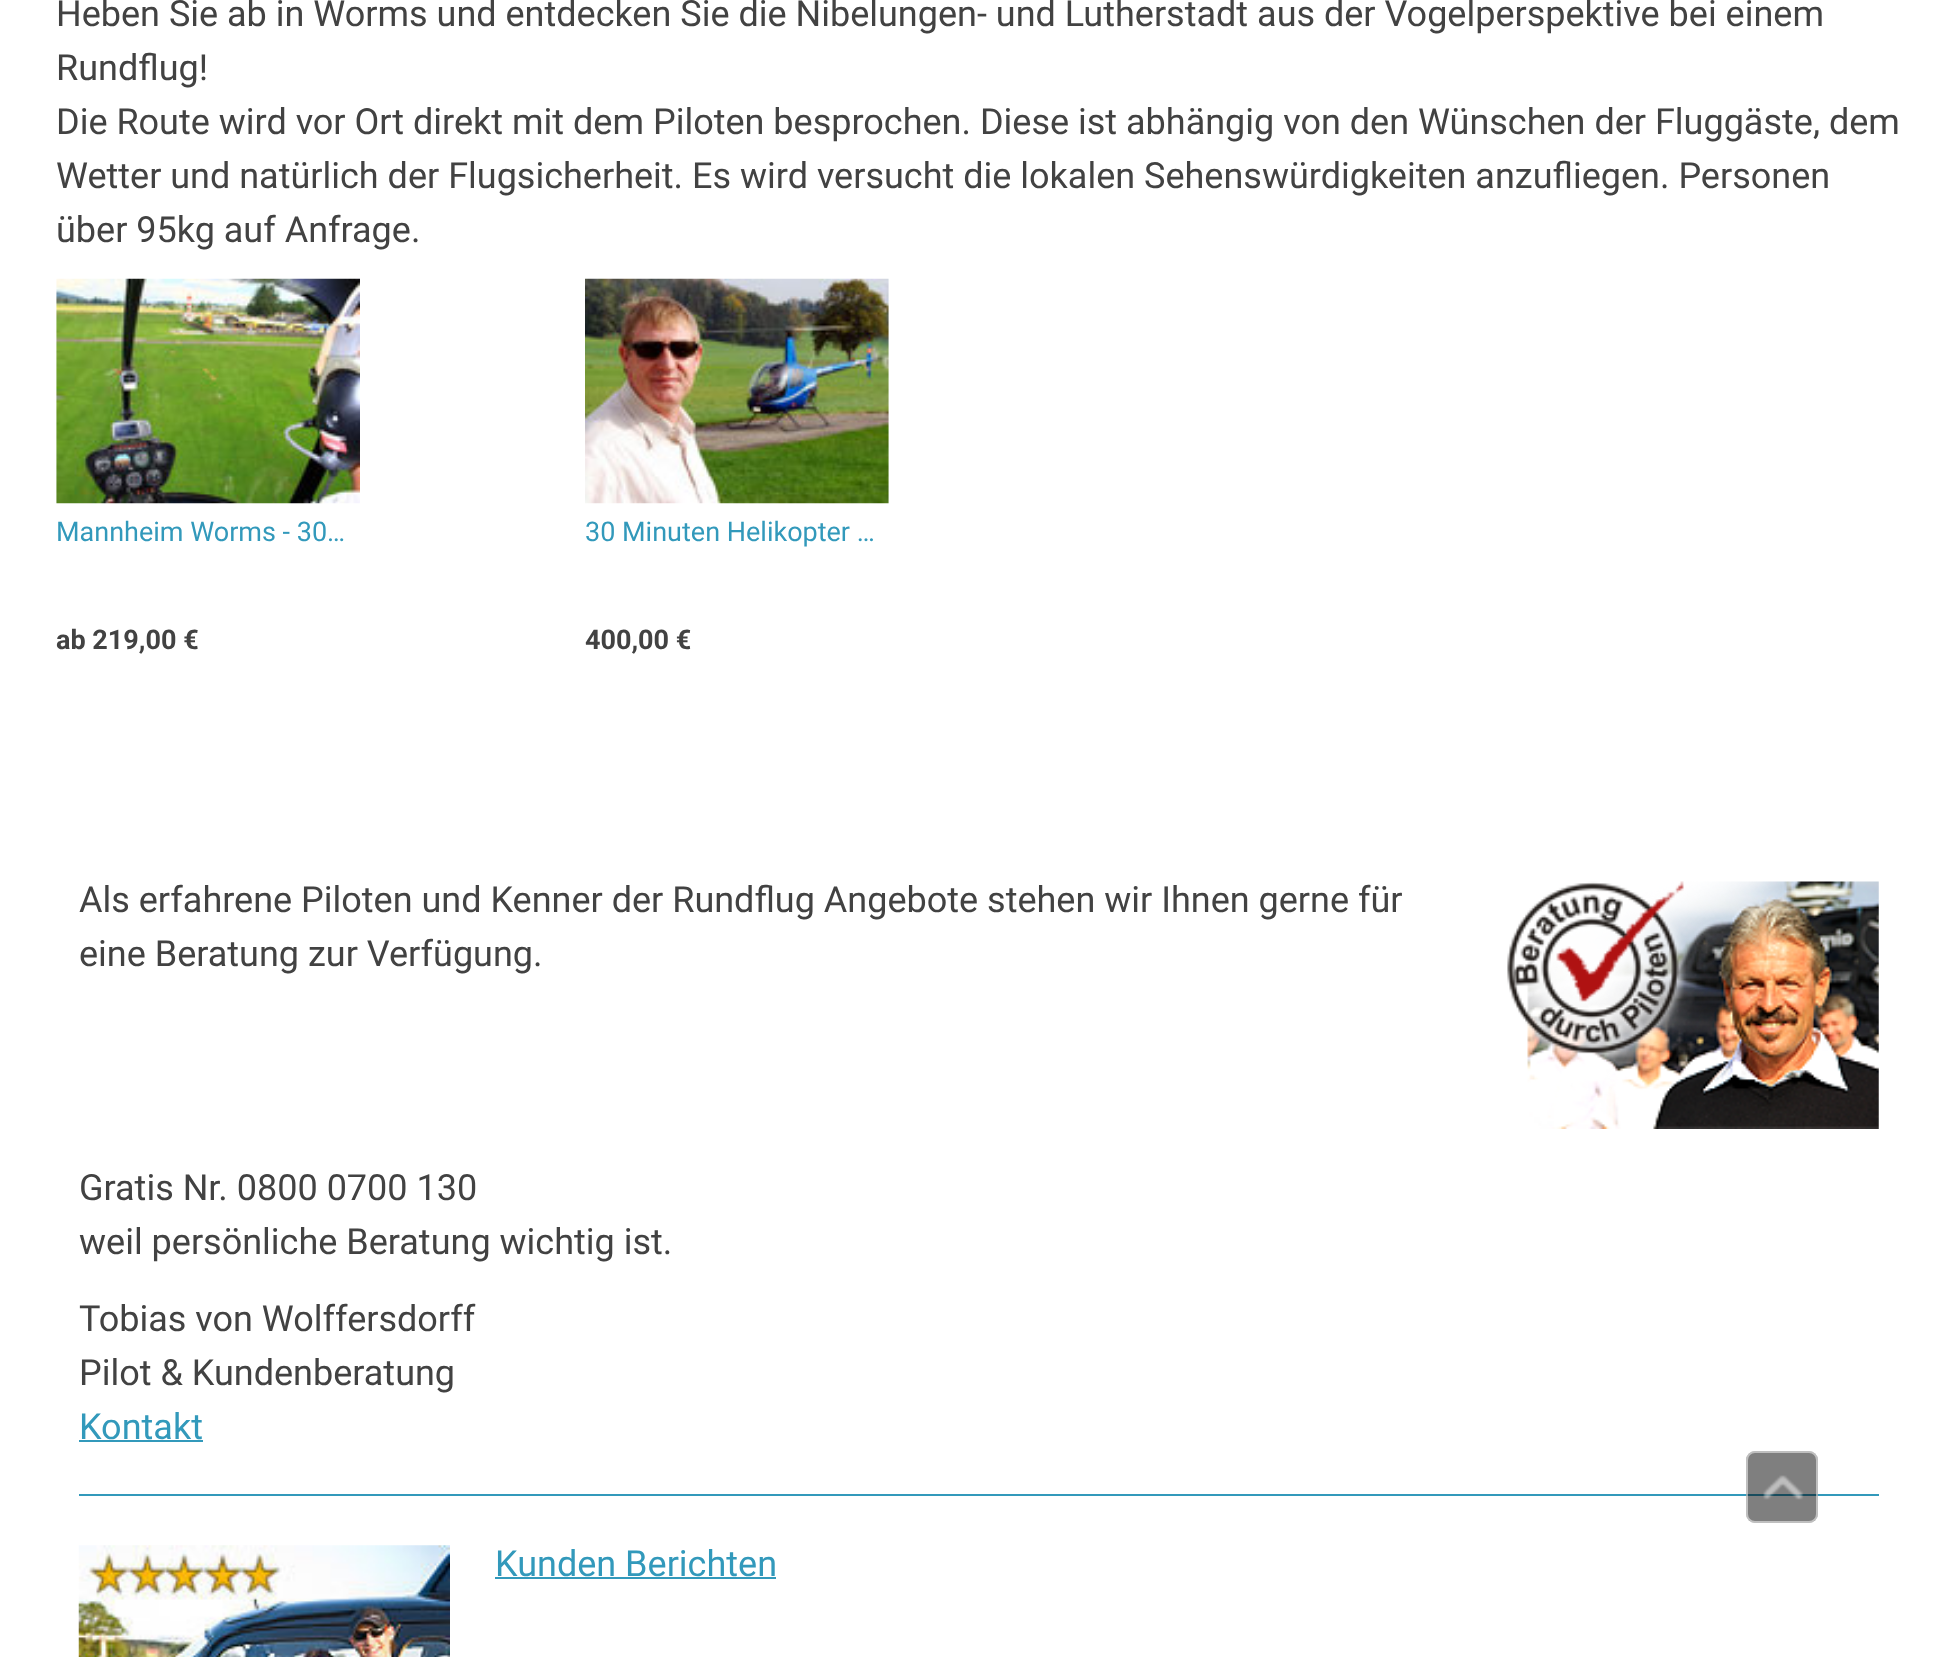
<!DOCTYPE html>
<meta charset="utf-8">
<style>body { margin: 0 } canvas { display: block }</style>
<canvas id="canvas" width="1957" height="1657"></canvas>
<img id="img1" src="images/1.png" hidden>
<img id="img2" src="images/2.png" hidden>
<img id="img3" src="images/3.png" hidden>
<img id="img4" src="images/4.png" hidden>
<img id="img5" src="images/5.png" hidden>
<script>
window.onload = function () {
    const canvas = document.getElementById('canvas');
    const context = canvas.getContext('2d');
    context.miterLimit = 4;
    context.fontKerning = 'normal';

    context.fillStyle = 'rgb(255, 255, 255)';
    context.fillRect(0, 0, 1957, 1657);
    context.drawImage(document.getElementById('img1'), 56, 278, 304, 226);
    context.drawImage(document.getElementById('img2'), 585, 278, 304, 226);
    context.drawImage(document.getElementById('img3'), 1507, 881, 372, 248);
    context.fillStyle = 'rgb(50, 153, 187)';
    context.fillRect(79, 1440, 124, 2);
    context.fillRect(79, 1494, 1800, 2);
    context.drawImage(document.getElementById('img4'), 78, 1545, 372, 112);
    context.fillRect(495, 1577, 281, 2);
    context.fillStyle = 'rgba(0, 0, 0, 0.5)';
    context.beginPath();
    context.roundRect(1746, 1451, 72, 72, 9);
    context.fill();
    context.beginPath();
    context.roundRect(1747, 1452, 70, 70, 8);
    context.strokeStyle = 'rgba(255, 255, 255, 0.5)';
    context.lineWidth = 2;
    context.stroke();
    context.drawImage(document.getElementById('img5'), 1763, 1475, 41, 25);
    context.font = '36px Roboto';
    context.fillStyle = 'rgb(66, 66, 66)';
    context.fillText('Heben Sie ab in Worms und entdecken Sie die Nibelungen- und Lutherstadt aus der Vogelperspektive bei einem', 56, 26);
    context.fillText('Rundflug!', 56, 80);
    context.fillText('Die Route wird vor Ort direkt mit dem Piloten besprochen. Diese ist abhängig von den Wünschen der Fluggäste, dem', 56, 134);
    context.fillText('Wetter und natürlich der Flugsicherheit. Es wird versucht die lokalen Sehenswürdigkeiten anzufliegen. Personen', 56, 188);
    context.fillText('über 95kg auf Anfrage.', 56, 242);
    context.font = '27px Roboto';
    context.fillStyle = 'rgb(50, 153, 187)';
    context.fillText('Mannheim Worms - 30…', 56, 541);
    context.font = 'bold 27px Roboto';
    context.fillStyle = 'rgb(66, 66, 66)';
    context.fillText('ab 219,00 €', 56, 649);
    context.font = '27px Roboto';
    context.fillStyle = 'rgb(50, 153, 187)';
    context.fillText('30 Minuten Helikopter …', 585, 541);
    context.font = 'bold 27px Roboto';
    context.fillStyle = 'rgb(66, 66, 66)';
    context.fillText('400,00 €', 585, 649);
    context.font = '36px Roboto';
    context.fillText('Als erfahrene Piloten und Kenner der Rundflug Angebote stehen wir Ihnen gerne für', 79, 912);
    context.fillText('eine Beratung zur Verfügung.', 79, 966);
    context.fillText('Gratis Nr. 0800 0700 130', 79, 1200);
    context.fillText('weil persönliche Beratung wichtig ist.', 79, 1254);
    context.fillText('Tobias von Wolffersdorff', 79, 1331);
    context.fillText('Pilot & Kundenberatung', 79, 1385);
    context.fillStyle = 'rgb(50, 153, 187)';
    context.fillText('Kontakt', 79, 1439);
    context.fillText('Kunden Berichten', 495, 1576);
};
</script>
